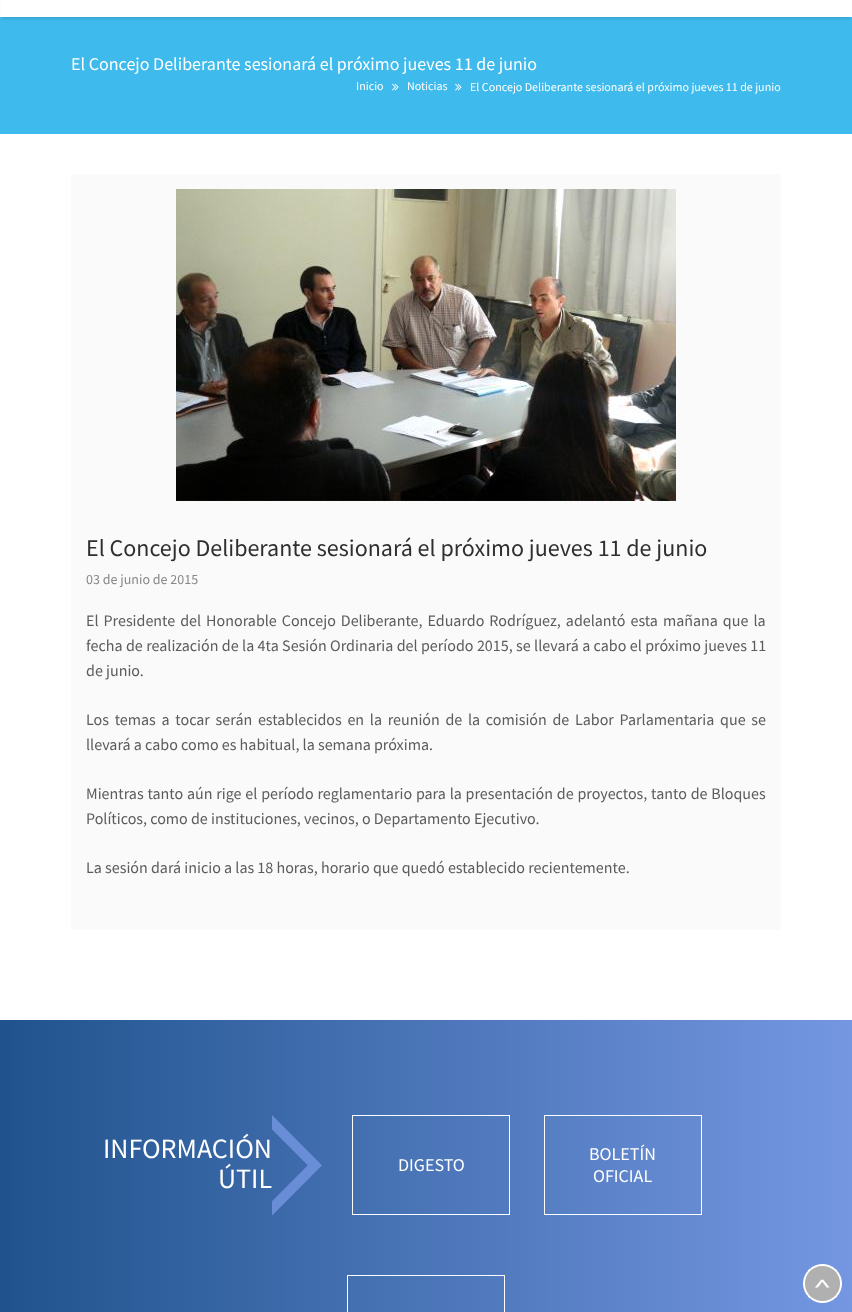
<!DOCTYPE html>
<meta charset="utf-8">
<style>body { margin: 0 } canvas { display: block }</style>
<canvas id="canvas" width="852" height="1312"></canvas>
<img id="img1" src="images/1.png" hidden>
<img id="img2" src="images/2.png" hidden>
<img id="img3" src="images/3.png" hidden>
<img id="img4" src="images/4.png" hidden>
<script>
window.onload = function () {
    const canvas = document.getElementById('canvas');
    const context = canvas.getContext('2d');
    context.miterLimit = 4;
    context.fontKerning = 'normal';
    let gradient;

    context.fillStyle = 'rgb(255, 255, 255)';
    context.fillRect(0, 0, 852, 1312);
    context.fillStyle = 'rgb(62, 186, 236)';
    context.fillRect(0, 17, 852, 117);
    context.fillStyle = 'rgba(0, 0, 0, 0.1)';
    context.filter = 'blur(1px)';
    context.beginPath();
    context.rect(2, -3, 848, 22);
    context.fill();
    context.filter = 'none';
    context.fillStyle = 'rgb(255, 255, 255)';
    context.fillRect(1, 0, 850, 17);
    context.drawImage(document.getElementById('img1'), 392, 83, 7, 8);
    context.drawImage(document.getElementById('img1'), 455, 83, 7, 8);
    context.fillStyle = 'rgb(250, 250, 250)';
    context.fillRect(71, 174, 710, 756);
    context.drawImage(document.getElementById('img2'), 176, 189, 500, 312);
    gradient = context.createLinearGradient(0, 1233, 852, 1233);
    gradient.addColorStop(0, 'rgb(32, 83, 141)');
    gradient.addColorStop(1, 'rgb(117, 151, 226)');
    context.fillStyle = gradient;
    context.fillRect(0, 1020, 852, 292);
    context.drawImage(document.getElementById('img3'), 272, 1115, 50, 100);
    context.strokeStyle = 'rgb(255, 255, 255)';
    context.strokeRect(352.5, 1115.5, 157, 99);
    context.strokeRect(544.5, 1115.5, 157, 99);
    context.strokeRect(347.5, 1275.5, 157, 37);
    context.drawImage(document.getElementById('img4'), 803, 1264, 39, 39);
    context.font = '18px Source Sans Pro';
    context.fillStyle = 'rgb(255, 255, 255)';
    context.fillText('El Concejo Deliberante sesionará el próximo jueves 11 de junio', 71, 70);
    context.font = '12px Source Sans Pro';
    context.fillText('Inicio', 356, 90);
    context.fillText('Noticias', 407, 90);
    context.fillText('El Concejo Deliberante sesionará el próximo jueves 11 de junio', 470, 91);
    context.font = '24px Source Sans Pro';
    context.fillStyle = 'rgb(47, 47, 47)';
    context.fillText('El Concejo Deliberante sesionará el próximo jueves 11 de junio', 86, 556);
    context.font = '14px Source Sans Pro';
    context.fillStyle = 'rgb(136, 136, 136)';
    context.fillText('03 de junio de 2015', 86, 584);
    context.wordSpacing = '1.8px';
    context.font = '16px Source Sans Pro';
    context.fillStyle = 'rgb(92, 92, 92)';
    context.fillText('El Presidente del Honorable Concejo Deliberante, Eduardo Rodríguez, adelantó esta mañana que la', 86, 626);
    context.wordSpacing = '0.2px';
    context.fillText('fecha de realización de la 4ta Sesión Ordinaria del período 2015, se llevará a cabo el próximo jueves 11', 86, 651);
    context.wordSpacing = '0px';
    context.fillText('de junio.', 86, 676);
    context.wordSpacing = '2.5px';
    context.fillText('Los temas a tocar serán establecidos en la reunión de la comisión de Labor Parlamentaria que se', 86, 725);
    context.wordSpacing = '0px';
    context.fillText('llevará a cabo como es habitual, la semana próxima.', 86, 750);
    context.wordSpacing = '0.6px';
    context.fillText('Mientras tanto aún rige el período reglamentario para la presentación de proyectos, tanto de Bloques', 86, 799);
    context.wordSpacing = '0px';
    context.fillText('Políticos, como de instituciones, vecinos, o Departamento Ejecutivo.', 86, 824);
    context.fillText('La sesión dará inicio a las 18 horas, horario que quedó establecido recientemente.', 86, 873);
    context.font = '28px Source Sans Pro';
    context.fillStyle = 'rgb(255, 255, 255)';
    context.fillText('INFORMACIÓN', 103, 1158);
    context.fillText('ÚTIL', 218, 1188);
    context.font = '18px Source Sans Pro';
    context.fillText('DIGESTO', 398, 1171);
    context.fillText('BOLETÍN', 589, 1160);
    context.fillText('OFICIAL', 593, 1182);
};
</script>
